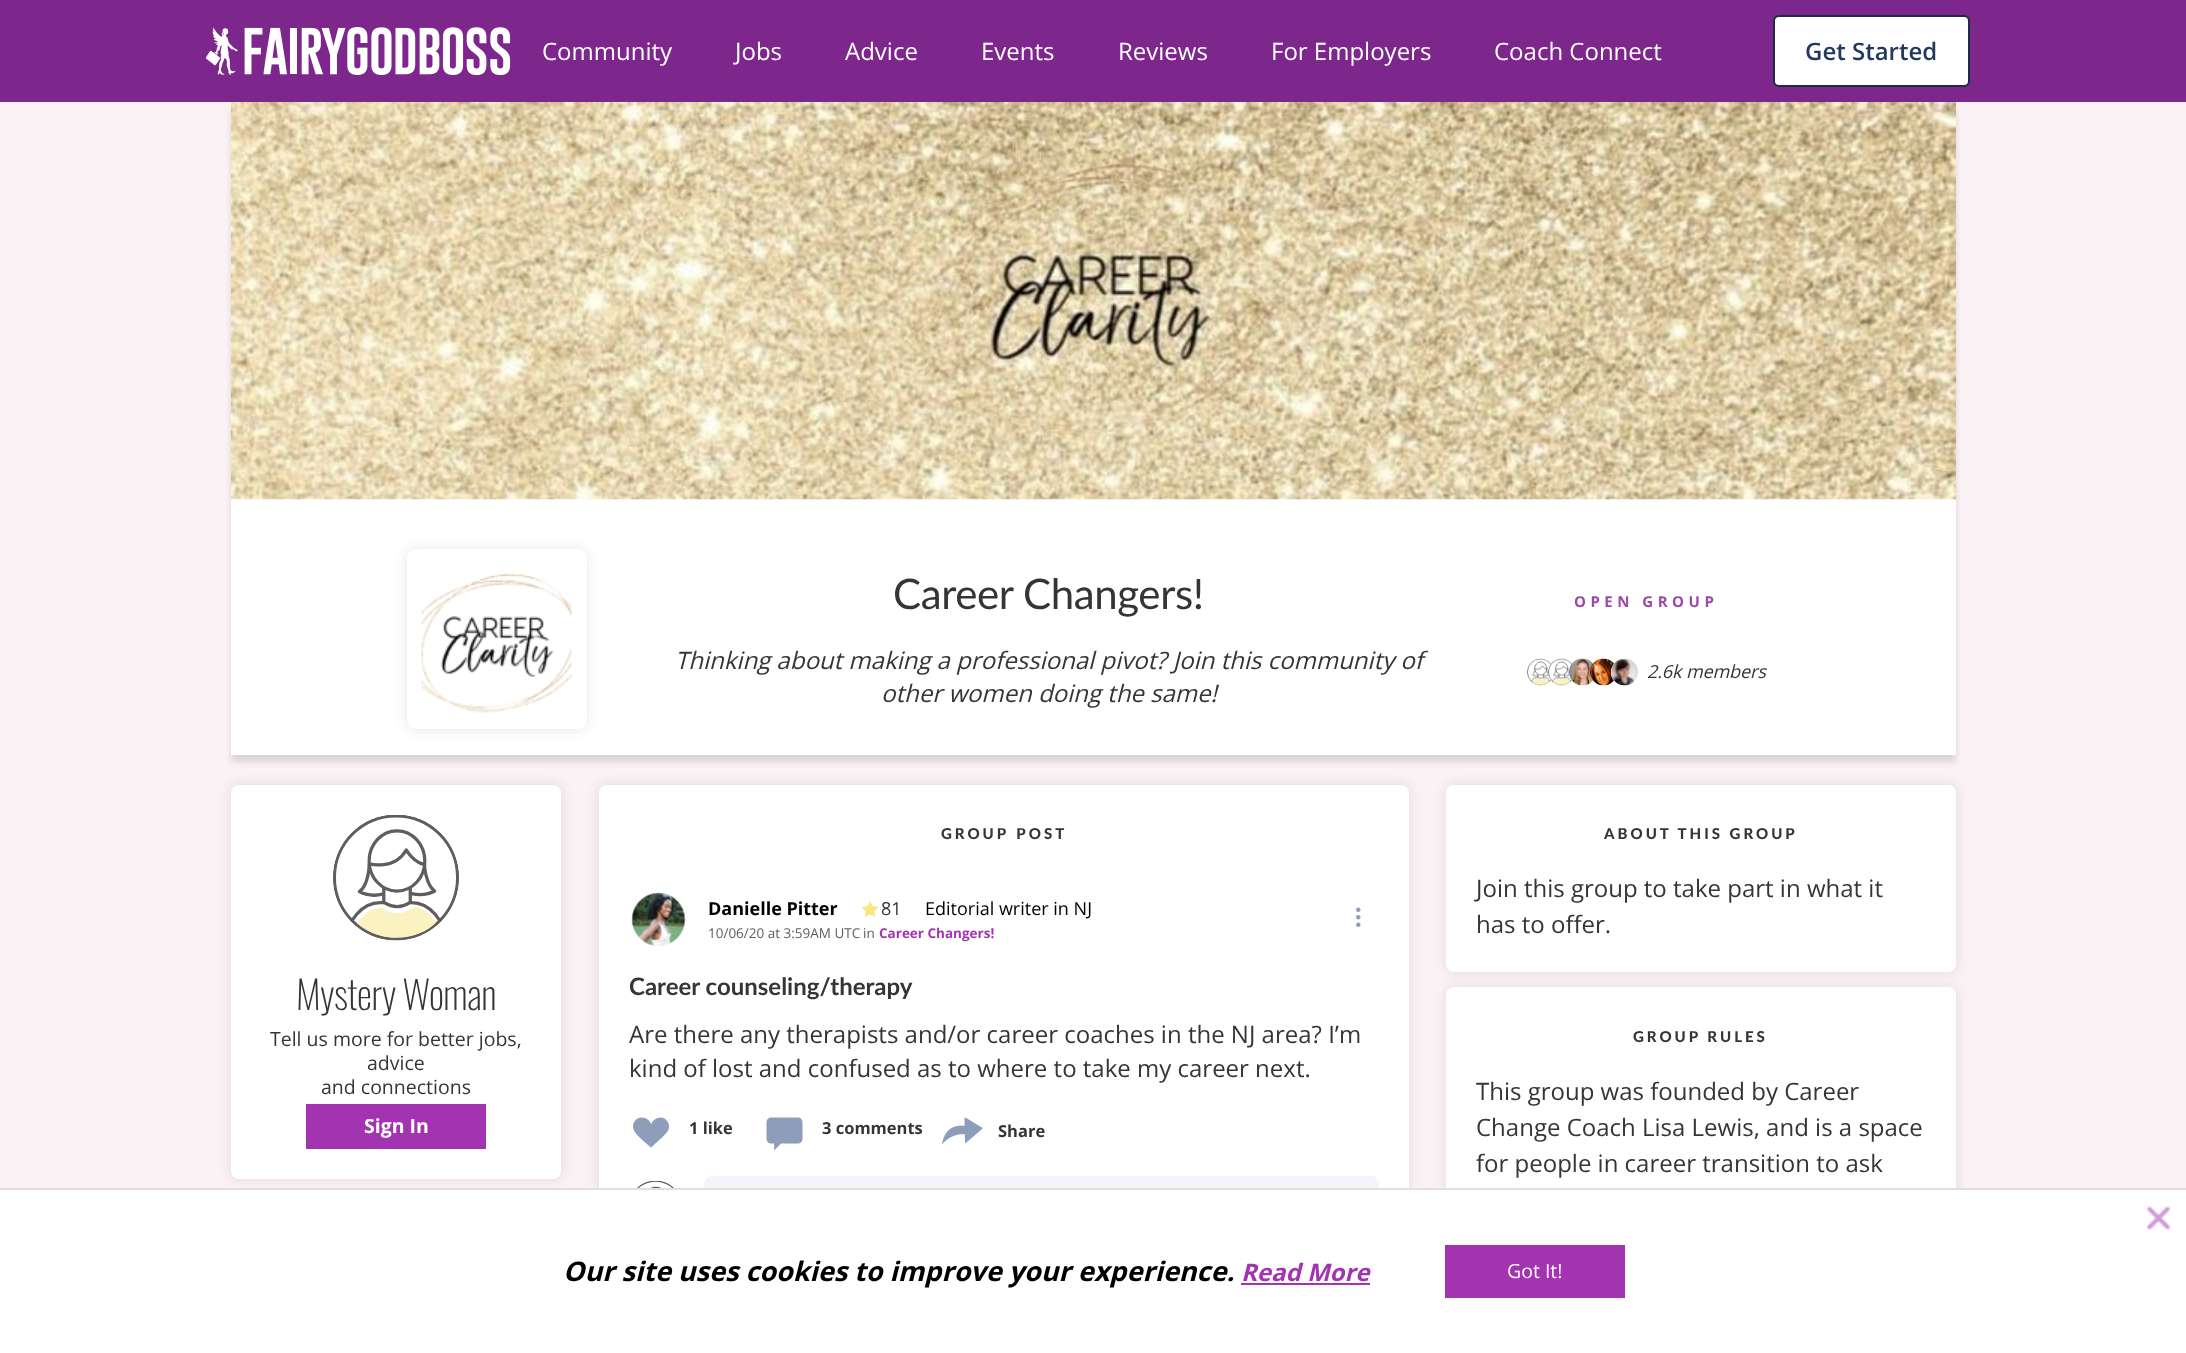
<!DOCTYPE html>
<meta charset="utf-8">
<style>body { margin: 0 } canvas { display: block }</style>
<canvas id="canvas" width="2186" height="1353"></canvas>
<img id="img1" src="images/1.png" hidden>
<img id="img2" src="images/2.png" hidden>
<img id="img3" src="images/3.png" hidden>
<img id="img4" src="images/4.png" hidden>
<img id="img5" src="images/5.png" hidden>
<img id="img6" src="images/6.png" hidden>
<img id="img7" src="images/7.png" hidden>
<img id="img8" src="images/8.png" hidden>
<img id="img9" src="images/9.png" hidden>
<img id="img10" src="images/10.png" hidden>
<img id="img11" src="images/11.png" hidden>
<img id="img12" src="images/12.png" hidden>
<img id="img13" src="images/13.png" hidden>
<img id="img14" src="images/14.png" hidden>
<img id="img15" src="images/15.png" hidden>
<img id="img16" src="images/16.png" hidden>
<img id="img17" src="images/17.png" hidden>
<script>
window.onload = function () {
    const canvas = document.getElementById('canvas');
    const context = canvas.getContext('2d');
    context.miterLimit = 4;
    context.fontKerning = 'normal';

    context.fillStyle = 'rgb(251, 242, 245)';
    context.fillRect(0, 0, 2186, 1353);
    context.fillStyle = 'rgba(0, 0, 0, 0.12)';
    context.filter = 'blur(3px)';
    context.beginPath();
    context.rect(231, 110, 1725, 652);
    context.fill();
    context.filter = 'none';
    context.fillStyle = 'rgb(125, 38, 139)';
    context.fillRect(0, 0, 2186, 102);
    context.drawImage(document.getElementById('img1'), 206, 27, 305, 49);
    context.fillStyle = 'rgb(255, 255, 255)';
    context.beginPath();
    context.roundRect(1774, 16, 195, 70, 5);
    context.fill();
    context.strokeStyle = 'rgb(27, 43, 74)';
    context.lineWidth = 2;
    context.stroke();
    context.fillRect(231, 499, 1725, 256);
    context.drawImage(document.getElementById('img2'), 231, 102, 1725, 398);
    context.fillStyle = 'rgba(0, 0, 0, 0.08)';
    context.filter = 'blur(6px)';
    context.beginPath();
    context.roundRect(405, 548, 183, 183, 11);
    context.fill();
    context.filter = 'none';
    context.fillStyle = 'rgb(255, 255, 255)';
    context.beginPath();
    context.roundRect(407, 549, 180, 180, 9);
    context.fill();
    context.drawImage(document.getElementById('img3'), 421, 573, 151, 140);
    context.drawImage(document.getElementById('img4'), 1527, 658, 24, 28);
    context.beginPath();
    context.arc(1561.5, 672.5, 13.5, 0, 2 * Math.PI);
    context.fill();
    context.drawImage(document.getElementById('img5'), 1548, 658, 24, 28);
    context.beginPath();
    context.arc(1582.5, 672.5, 13.5, 0, 2 * Math.PI);
    context.fill();
    context.drawImage(document.getElementById('img6'), 1569, 658, 25, 28);
    context.beginPath();
    context.arc(1603.5, 672.5, 13.5, 0, 2 * Math.PI);
    context.fill();
    context.drawImage(document.getElementById('img7'), 1590, 658, 25, 28);
    context.beginPath();
    context.arc(1624.5, 672.5, 13.5, 0, 2 * Math.PI);
    context.fill();
    context.drawImage(document.getElementById('img8'), 1611, 658, 27, 28);
    context.fillStyle = 'rgba(0, 0, 0, 0.08)';
    context.filter = 'blur(6px)';
    context.beginPath();
    context.roundRect(230, 783, 333, 398, 9);
    context.fill();
    context.filter = 'none';
    context.fillStyle = 'rgb(255, 255, 255)';
    context.beginPath();
    context.roundRect(231, 785, 330, 394, 8);
    context.fill();
    context.drawImage(document.getElementById('img9'), 333, 815, 126, 126);
    context.fillStyle = 'rgb(162, 52, 178)';
    context.fillRect(306, 1104, 180, 45);
    context.fillStyle = 'rgba(0, 0, 0, 0.08)';
    context.filter = 'blur(6px)';
    context.beginPath();
    context.roundRect(597, 783, 813, 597, 9);
    context.fill();
    context.filter = 'none';
    context.fillStyle = 'rgb(255, 255, 255)';
    context.beginPath();
    context.roundRect(599, 785, 810, 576, 8);
    context.fill();
    context.drawImage(document.getElementById('img10'), 631, 892, 55, 54);
    context.drawImage(document.getElementById('img11'), 861, 901, 18, 16);
    context.drawImage(document.getElementById('img12'), 1356, 907, 5, 20);
    context.drawImage(document.getElementById('img13'), 633, 1117, 36, 31);
    context.drawImage(document.getElementById('img14'), 766, 1117, 37, 34);
    context.drawImage(document.getElementById('img15'), 942, 1117, 41, 28);
    context.drawImage(document.getElementById('img16'), 637, 1181, 37, 7);
    context.fillStyle = 'rgb(243, 245, 248)';
    context.beginPath();
    context.roundRect(704, 1176, 675, 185, 8);
    context.fill();
    context.fillStyle = 'rgba(0, 0, 0, 0.08)';
    context.filter = 'blur(6px)';
    context.beginPath();
    context.roundRect(1445, 783, 513, 191, 9);
    context.fill();
    context.filter = 'none';
    context.fillStyle = 'rgb(255, 255, 255)';
    context.beginPath();
    context.roundRect(1446, 785, 510, 187, 8);
    context.fill();
    context.fillStyle = 'rgba(0, 0, 0, 0.08)';
    context.filter = 'blur(6px)';
    context.beginPath();
    context.roundRect(1445, 986, 513, 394, 9);
    context.fill();
    context.filter = 'none';
    context.fillStyle = 'rgb(255, 255, 255)';
    context.beginPath();
    context.roundRect(1446, 987, 510, 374, 8);
    context.fill();
    context.fillRect(0, 1190, 2186, 163);
    context.fillStyle = 'rgb(224, 224, 224)';
    context.fillRect(0, 1188, 2186, 2);
    context.drawImage(document.getElementById('img17'), 2146, 1206, 25, 25);
    context.fillStyle = 'rgb(162, 52, 178)';
    context.fillRect(1241, 1283, 129, 2);
    context.fillRect(1445, 1245, 180, 53);
    context.font = '24px Open Sans';
    context.fillStyle = 'rgb(255, 255, 255)';
    context.fillText('Community', 542, 60);
    context.fillText('Jobs', 735, 60);
    context.fillText('Advice', 845, 60);
    context.fillText('Events', 981, 60);
    context.fillText('Reviews', 1118, 60);
    context.fillText('For Employers', 1271, 60);
    context.fillText('Coach Connect', 1494, 60);
    context.font = '600 24px Open Sans';
    context.fillStyle = 'rgb(34, 56, 94)';
    context.fillText('Get Started', 1805, 60);
    context.letterSpacing = '-0.4px';
    context.font = '42px Lato';
    context.fillStyle = 'rgb(53, 53, 53)';
    context.fillText('Career Changers!', 893, 609);
    context.letterSpacing = '0px';
    context.font = 'italic 24px Open Sans';
    context.fillText('Thinking about making a professional pivot? Join this community of', 675, 669);
    context.fillText('other women doing the same!', 881, 702);
    context.letterSpacing = '4.5px';
    context.font = 'bold 15px Open Sans';
    context.fillStyle = 'rgb(156, 74, 168)';
    context.fillText('OPEN GROUP', 1574, 607);
    context.letterSpacing = '-0.1px';
    context.font = 'italic 18px Open Sans';
    context.fillStyle = 'rgb(53, 53, 53)';
    context.fillText('2.6k members', 1647, 678);
    context.letterSpacing = '-0.6px';
    context.font = '200 39px Oswald';
    context.fillText('Mystery Woman', 296, 1010);
    context.letterSpacing = '0px';
    context.font = '19.5px Open Sans';
    context.fillText('Tell us more for better jobs,', 270, 1046);
    context.fillText('advice', 367, 1070);
    context.fillText('and connections', 321, 1094);
    context.font = 'bold 19.5px Open Sans';
    context.fillStyle = 'rgb(255, 255, 255)';
    context.fillText('Sign In', 364, 1133);
    context.letterSpacing = '3px';
    context.wordSpacing = '1px';
    context.font = '900 15px Lato';
    context.fillStyle = 'rgb(53, 53, 53)';
    context.fillText('GROUP POST', 941, 839);
    context.letterSpacing = '0px';
    context.wordSpacing = '0px';
    context.font = 'bold 18px Open Sans';
    context.fillStyle = 'rgb(0, 0, 0)';
    context.fillText('Danielle Pitter', 708, 915);
    context.font = '18px Open Sans';
    context.fillStyle = 'rgb(53, 53, 53)';
    context.fillText('81', 881, 915);
    context.fillStyle = 'rgb(0, 0, 0)';
    context.fillText('Editorial writer in NJ', 925, 915);
    context.font = '13.5px Open Sans';
    context.fillStyle = 'rgb(95, 93, 93)';
    context.fillText('10/06/20 at 3:59AM UTC', 708, 938);
    context.fillText('in', 863, 938);
    context.font = 'bold 13.5px Open Sans';
    context.fillStyle = 'rgb(162, 52, 178)';
    context.fillText('Career Changers!', 879, 938);
    context.font = 'bold 24px Lato';
    context.fillStyle = 'rgb(53, 53, 53)';
    context.fillText('Career counseling/therapy', 629, 995);
    context.font = '24px Open Sans';
    context.fillText('Are there any therapists and/or career coaches in the NJ area? I’m', 629, 1043);
    context.fillText('kind of lost and confused as to where to take my career next.', 629, 1077);
    context.font = 'bold 16.5px Open Sans';
    context.fillText('1 like', 689, 1134);
    context.fillText('3 comments', 822, 1134);
    context.fillText('Share', 998, 1137);
    context.letterSpacing = '3px';
    context.font = '900 15px Lato';
    context.fillText('ABOUT THIS GROUP', 1604, 839);
    context.letterSpacing = '0px';
    context.font = '24px Open Sans';
    context.fillText('Join this group to take part in what it', 1476, 897);
    context.fillText('has to offer.', 1476, 933);
    context.letterSpacing = '3px';
    context.font = '900 15px Lato';
    context.fillText('GROUP RULES', 1633, 1042);
    context.letterSpacing = '0px';
    context.font = '24px Open Sans';
    context.fillText('This group was founded by Career', 1476, 1100);
    context.fillText('Change Coach Lisa Lewis, and is a space', 1476, 1136);
    context.fillText('for people in career transition to ask', 1476, 1172);
    context.font = 'italic bold 27px Open Sans';
    context.fillStyle = 'rgb(0, 0, 0)';
    context.fillText('Our site uses cookies to improve your experience.', 563, 1281);
    context.font = 'italic bold 24px Open Sans';
    context.fillStyle = 'rgb(162, 52, 178)';
    context.fillText('Read More', 1241, 1281);
    context.font = '19.5px Open Sans';
    context.fillStyle = 'rgb(255, 255, 255)';
    context.fillText('Got It!', 1507, 1278);
};
</script>
